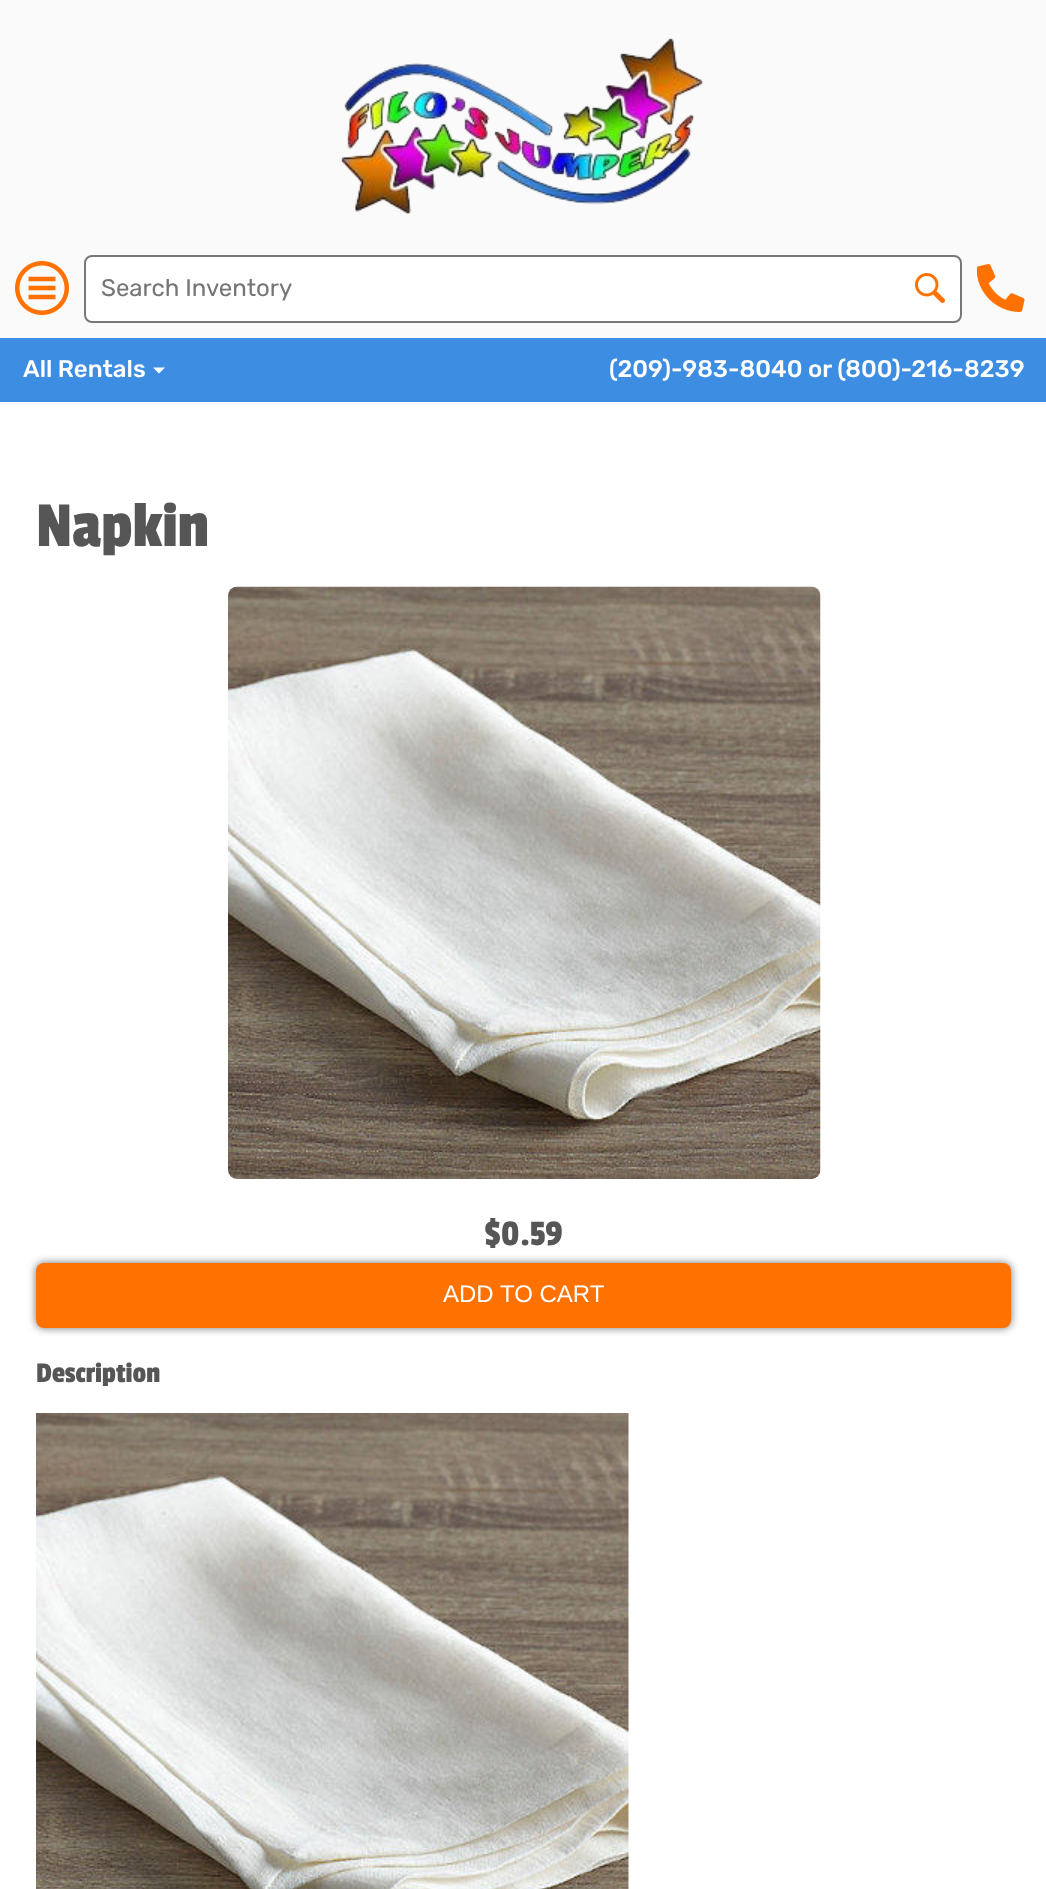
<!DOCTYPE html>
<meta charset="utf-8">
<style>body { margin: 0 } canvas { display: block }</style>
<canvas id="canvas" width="1046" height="1889"></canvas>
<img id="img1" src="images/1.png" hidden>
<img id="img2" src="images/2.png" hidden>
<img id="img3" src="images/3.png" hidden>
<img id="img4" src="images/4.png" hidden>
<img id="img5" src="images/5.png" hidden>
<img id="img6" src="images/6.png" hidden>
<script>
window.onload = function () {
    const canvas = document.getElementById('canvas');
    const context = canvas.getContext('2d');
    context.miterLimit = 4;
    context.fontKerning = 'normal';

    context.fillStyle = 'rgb(255, 255, 255)';
    context.fillRect(0, 0, 1046, 1889);
    context.fillStyle = 'rgb(250, 250, 250)';
    context.fillRect(0, 0, 1046, 338);
    context.drawImage(document.getElementById('img1'), 341, 37, 362, 178);
    context.drawImage(document.getElementById('img2'), 15, 261, 54, 54);
    context.fillStyle = 'rgb(255, 255, 255)';
    context.beginPath();
    context.roundRect(85, 256, 876, 66, 7);
    context.fill();
    context.strokeStyle = 'rgb(119, 119, 119)';
    context.lineWidth = 2;
    context.stroke();
    context.drawImage(document.getElementById('img3'), 915, 273, 30, 30);
    context.drawImage(document.getElementById('img4'), 977, 264, 48, 48);
    context.fillStyle = 'rgb(61, 141, 226)';
    context.fillRect(0, 338, 1046, 64);
    context.fillStyle = 'rgb(255, 255, 255)';
    context.beginPath();
    context.moveTo(153, 367.5);
    context.lineTo(165, 367.5);
    context.lineTo(159, 373.5);
    context.closePath();
    context.fill();
    context.drawImage(document.getElementById('img5'), 228, 586, 593, 593);
    context.fillStyle = 'rgb(112, 112, 112)';
    context.filter = 'blur(4px)';
    context.beginPath();
    context.roundRect(36, 1263, 975, 65, 8);
    context.fill();
    context.filter = 'none';
    context.fillStyle = 'rgb(255, 114, 1)';
    context.beginPath();
    context.roundRect(36, 1263, 975, 65, 8);
    context.fill();
    context.drawImage(document.getElementById('img6'), 36, 1413, 593, 476);
    context.font = '24px Rubik';
    context.fillStyle = 'rgb(117, 117, 117)';
    context.fillText('Search Inventory', 101, 296);
    context.font = '500 24px Rubik';
    context.fillStyle = 'rgb(255, 255, 255)';
    context.fillText('All Rentals', 23, 377);
    context.fillText('(209)-983-8040 or (800)-216-8239', 609, 377);
    context.font = '67px Passion One';
    context.fillStyle = 'rgb(86, 86, 86)';
    context.fillText('Napkin', 36, 546);
    context.font = '37.5px Passion One';
    context.fillText('$0.59', 484, 1245);
    context.font = '24px Liberation Sans';
    context.fillStyle = 'rgb(255, 255, 255)';
    context.fillText('ADD TO CART', 443, 1302);
    context.font = '30px Passion One';
    context.fillStyle = 'rgb(86, 86, 86)';
    context.fillText('Description', 36, 1382);
};
</script>
